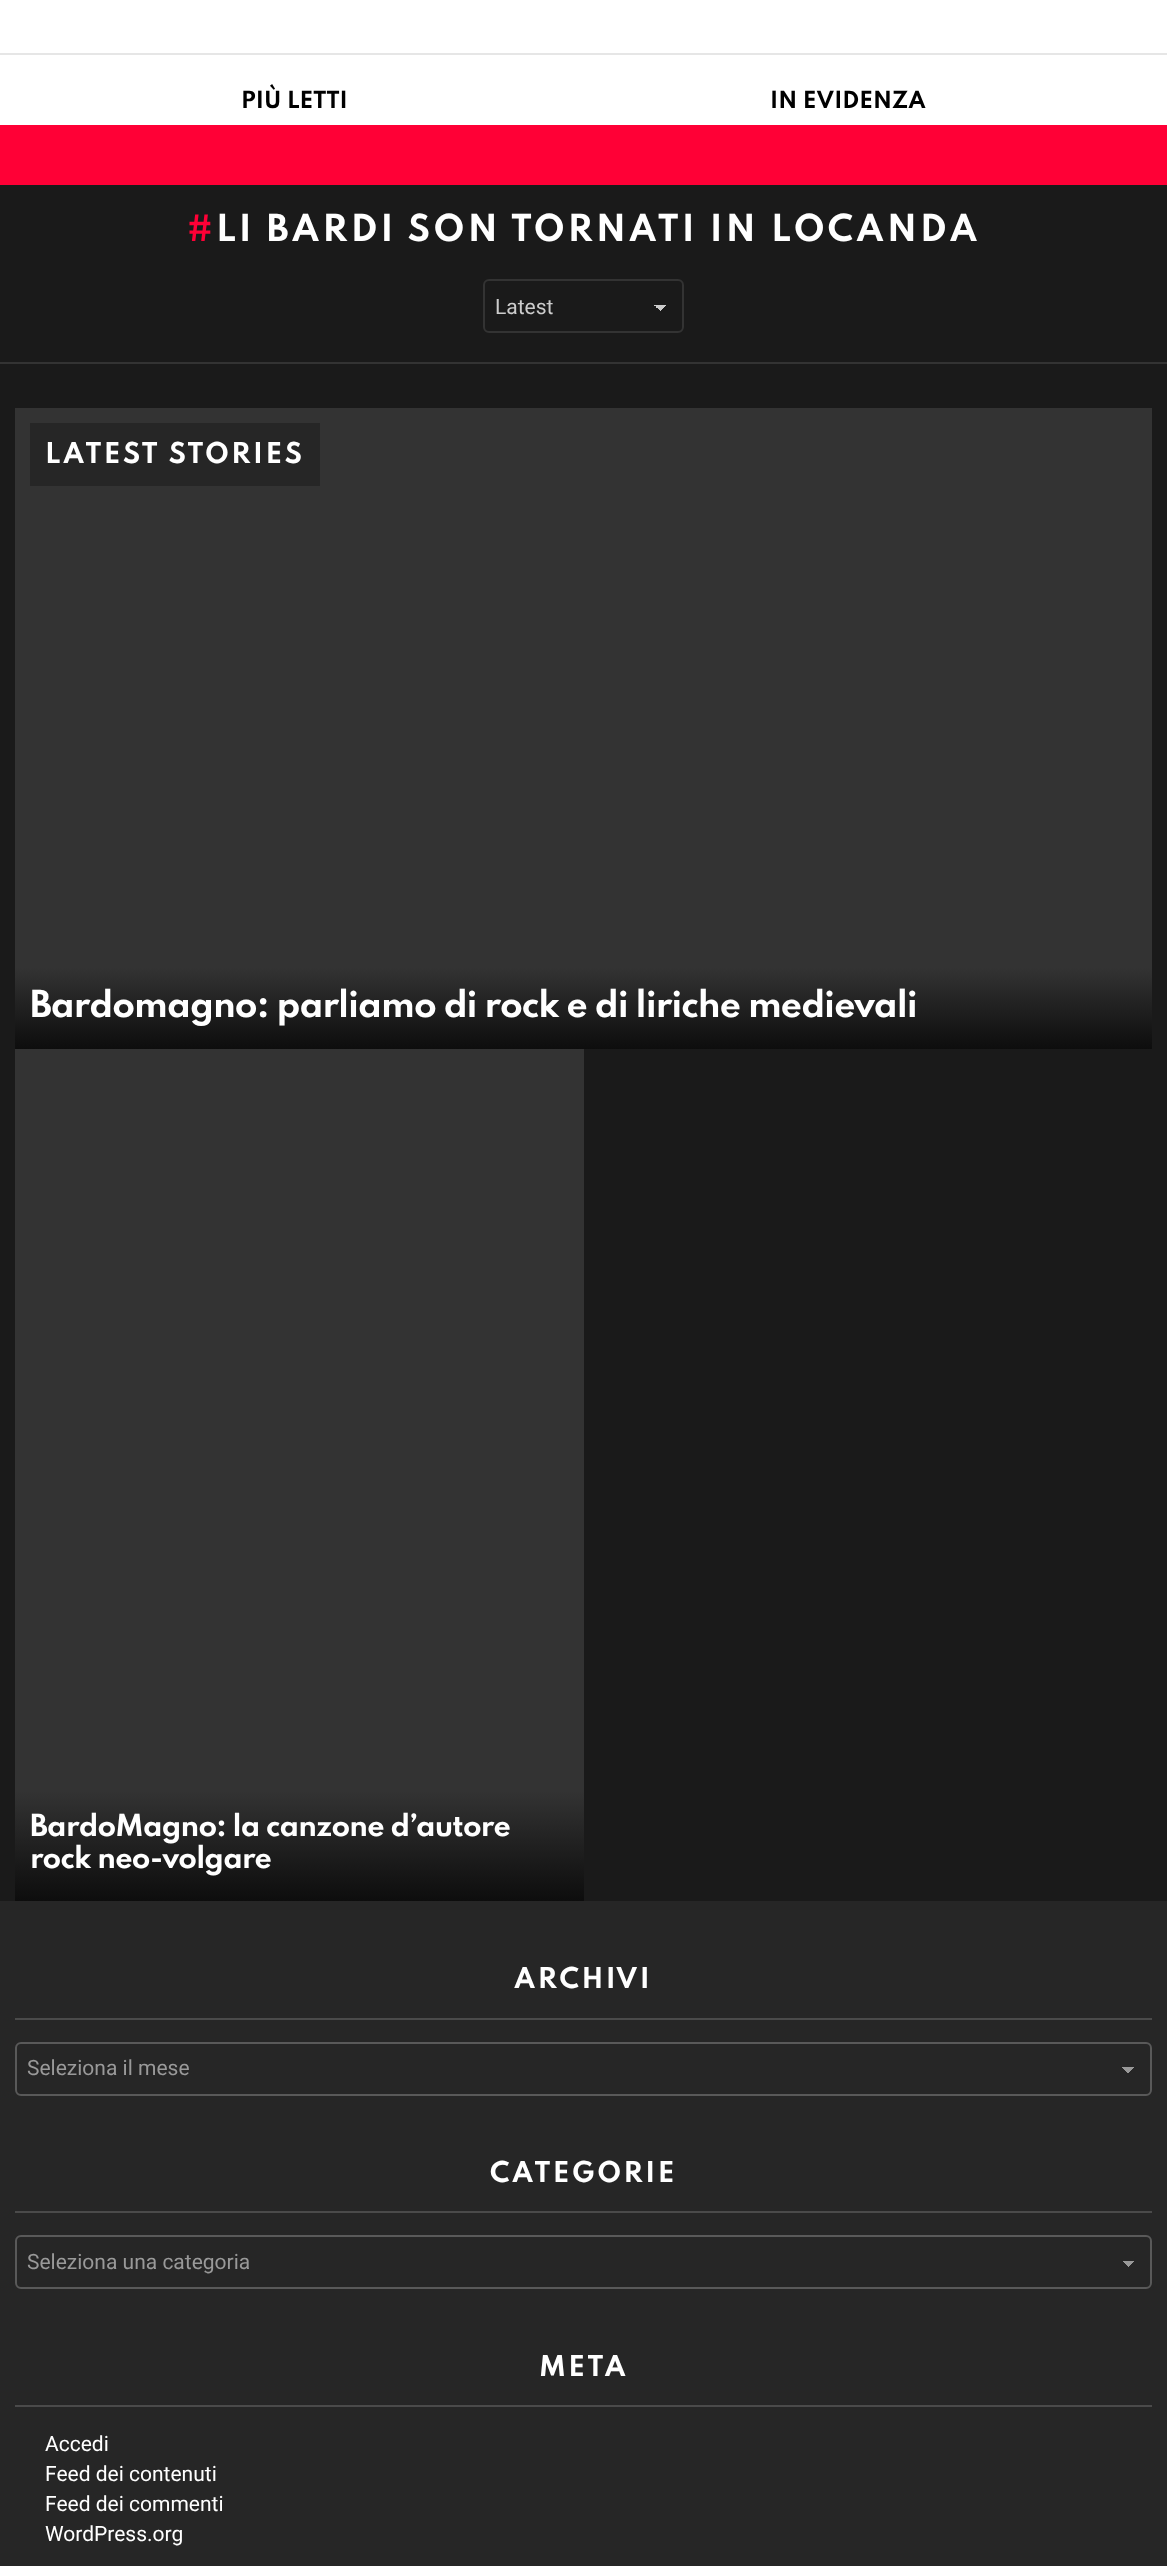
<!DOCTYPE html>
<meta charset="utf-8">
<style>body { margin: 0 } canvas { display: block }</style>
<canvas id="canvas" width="1167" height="2566"></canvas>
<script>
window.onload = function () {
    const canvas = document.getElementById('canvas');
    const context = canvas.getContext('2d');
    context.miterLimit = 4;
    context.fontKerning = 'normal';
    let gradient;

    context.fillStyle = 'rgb(26, 26, 26)';
    context.fillRect(0, 0, 1167, 2566);
    context.fillStyle = 'rgb(255, 255, 255)';
    context.fillRect(0, 0, 1167, 53);
    context.fillStyle = 'rgb(230, 230, 230)';
    context.fillRect(0, 53, 1167, 2);
    context.fillStyle = 'rgb(255, 255, 255)';
    context.fillRect(0, 55, 1167, 70);
    context.fillStyle = 'rgb(255, 0, 54)';
    context.fillRect(0, 125, 1167, 60);
    gradient = context.createLinearGradient(660, 304, 667, 311);
    gradient.addColorStop(0.5, 'rgb(204, 204, 204)');
    gradient.addColorStop(0.5, 'rgb(26, 26, 26)');
    context.fillStyle = gradient;
    context.fillRect(660, 305, 8, 6);
    gradient = context.createLinearGradient(653, 311, 660, 304);
    gradient.addColorStop(0.5, 'rgb(26, 26, 26)');
    gradient.addColorStop(0.5, 'rgb(204, 204, 204)');
    context.fillStyle = gradient;
    context.fillRect(653, 305, 7, 5);
    context.beginPath();
    context.roundRect(484, 280, 199, 52, 5);
    context.strokeStyle = 'rgb(51, 51, 51)';
    context.lineWidth = 2;
    context.stroke();
    context.fillStyle = 'rgb(51, 51, 51)';
    context.fillRect(0, 362, 1167, 2);
    context.fillRect(15, 408, 1137, 560);
    context.fillStyle = 'rgb(38, 38, 38)';
    context.fillRect(30, 423, 290, 63);
    gradient = context.createLinearGradient(584, 968, 584, 1049);
    gradient.addColorStop(0, 'rgb(51, 51, 51)');
    gradient.addColorStop(1, 'rgb(13, 13, 13)');
    context.fillStyle = gradient;
    context.fillRect(15, 968, 1137, 81);
    context.fillStyle = 'rgb(51, 51, 51)';
    context.fillRect(15, 1049, 569, 742);
    gradient = context.createLinearGradient(299, 1791, 299, 1901);
    gradient.addColorStop(0, 'rgb(51, 51, 51)');
    gradient.addColorStop(1, 'rgb(13, 13, 13)');
    context.fillStyle = gradient;
    context.fillRect(15, 1791, 569, 110);
    context.fillStyle = 'rgb(38, 38, 38)';
    context.fillRect(0, 1901, 1167, 665);
    context.fillStyle = 'rgb(74, 74, 74)';
    context.fillRect(15, 2018, 1137, 2);
    gradient = context.createLinearGradient(1128, 2067, 1135, 2073);
    gradient.addColorStop(0.5, 'rgb(153, 153, 153)');
    gradient.addColorStop(0.5, 'rgb(38, 38, 38)');
    context.fillStyle = gradient;
    context.fillRect(1128, 2067, 8, 6);
    gradient = context.createLinearGradient(1121, 2073, 1128, 2067);
    gradient.addColorStop(0.5, 'rgb(38, 38, 38)');
    gradient.addColorStop(0.5, 'rgb(153, 153, 153)');
    context.fillStyle = gradient;
    context.fillRect(1121, 2067, 7, 6);
    context.beginPath();
    context.roundRect(16, 2043, 1135, 52, 5);
    context.strokeStyle = 'rgb(89, 89, 89)';
    context.stroke();
    context.fillStyle = 'rgb(74, 74, 74)';
    context.fillRect(15, 2211, 1137, 2);
    gradient = context.createLinearGradient(1128, 2260, 1135, 2267);
    gradient.addColorStop(0.5, 'rgb(153, 153, 153)');
    gradient.addColorStop(0.5, 'rgb(38, 38, 38)');
    context.fillStyle = gradient;
    context.fillRect(1128, 2261, 8, 6);
    gradient = context.createLinearGradient(1121, 2267, 1128, 2260);
    gradient.addColorStop(0.5, 'rgb(38, 38, 38)');
    gradient.addColorStop(0.5, 'rgb(153, 153, 153)');
    context.fillStyle = gradient;
    context.fillRect(1121, 2261, 7, 5);
    context.beginPath();
    context.roundRect(16, 2236, 1135, 52, 5);
    context.stroke();
    context.fillStyle = 'rgb(74, 74, 74)';
    context.fillRect(15, 2405, 1137, 2);
    context.font = 'bold 21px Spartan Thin';
    context.fillStyle = 'rgb(0, 0, 0)';
    context.fillText('PIÙ LETTI', 241, 108);
    context.fillText('IN EVIDENZA', 770, 108);
    context.letterSpacing = '3.2px';
    context.font = 'bold 33px Spartan Thin';
    context.fillStyle = 'rgb(255, 0, 54)';
    context.fillText('#', 187, 241);
    context.fillStyle = 'rgb(255, 255, 255)';
    context.fillText('LI BARDI SON TORNATI IN LOCANDA', 216, 241);
    context.letterSpacing = '0px';
    context.font = '21px Roboto';
    context.fillStyle = 'rgb(204, 204, 204)';
    context.fillText('Latest', 495, 314);
    context.letterSpacing = '2.5px';
    context.font = 'bold 25.5px Spartan Thin';
    context.fillStyle = 'rgb(255, 255, 255)';
    context.fillText('LATEST STORIES', 45, 463);
    context.letterSpacing = '-1px';
    context.font = 'bold 33px Spartan Thin';
    context.fillText('Bardomagno: parliamo di rock e di liriche medievali', 30, 1017);
    context.letterSpacing = '-0.8px';
    context.font = 'bold 27px Spartan Thin';
    context.fillText('BardoMagno: la canzone d’autore', 30, 1836);
    context.fillText('rock neo-volgare', 30, 1868);
    context.letterSpacing = '2.5px';
    context.font = 'bold 25.5px Spartan Thin';
    context.fillText('ARCHIVI', 514, 1988);
    context.letterSpacing = '0px';
    context.font = '21px Roboto';
    context.fillStyle = 'rgb(153, 153, 153)';
    context.fillText('Seleziona il mese', 27, 2075);
    context.letterSpacing = '2.5px';
    context.font = 'bold 25.5px Spartan Thin';
    context.fillStyle = 'rgb(255, 255, 255)';
    context.fillText('CATEGORIE', 490, 2182);
    context.letterSpacing = '0px';
    context.font = '21px Roboto';
    context.fillStyle = 'rgb(153, 153, 153)';
    context.fillText('Seleziona una categoria', 27, 2269);
    context.letterSpacing = '2.5px';
    context.font = 'bold 25.5px Spartan Thin';
    context.fillStyle = 'rgb(255, 255, 255)';
    context.fillText('META', 539, 2376);
    context.letterSpacing = '0px';
    context.font = '21px Roboto';
    context.fillText('Accedi', 45, 2451);
    context.fillText('Feed dei contenuti', 45, 2481);
    context.fillText('Feed dei commenti', 45, 2511);
    context.fillText('WordPress.org', 45, 2541);
};
</script>
